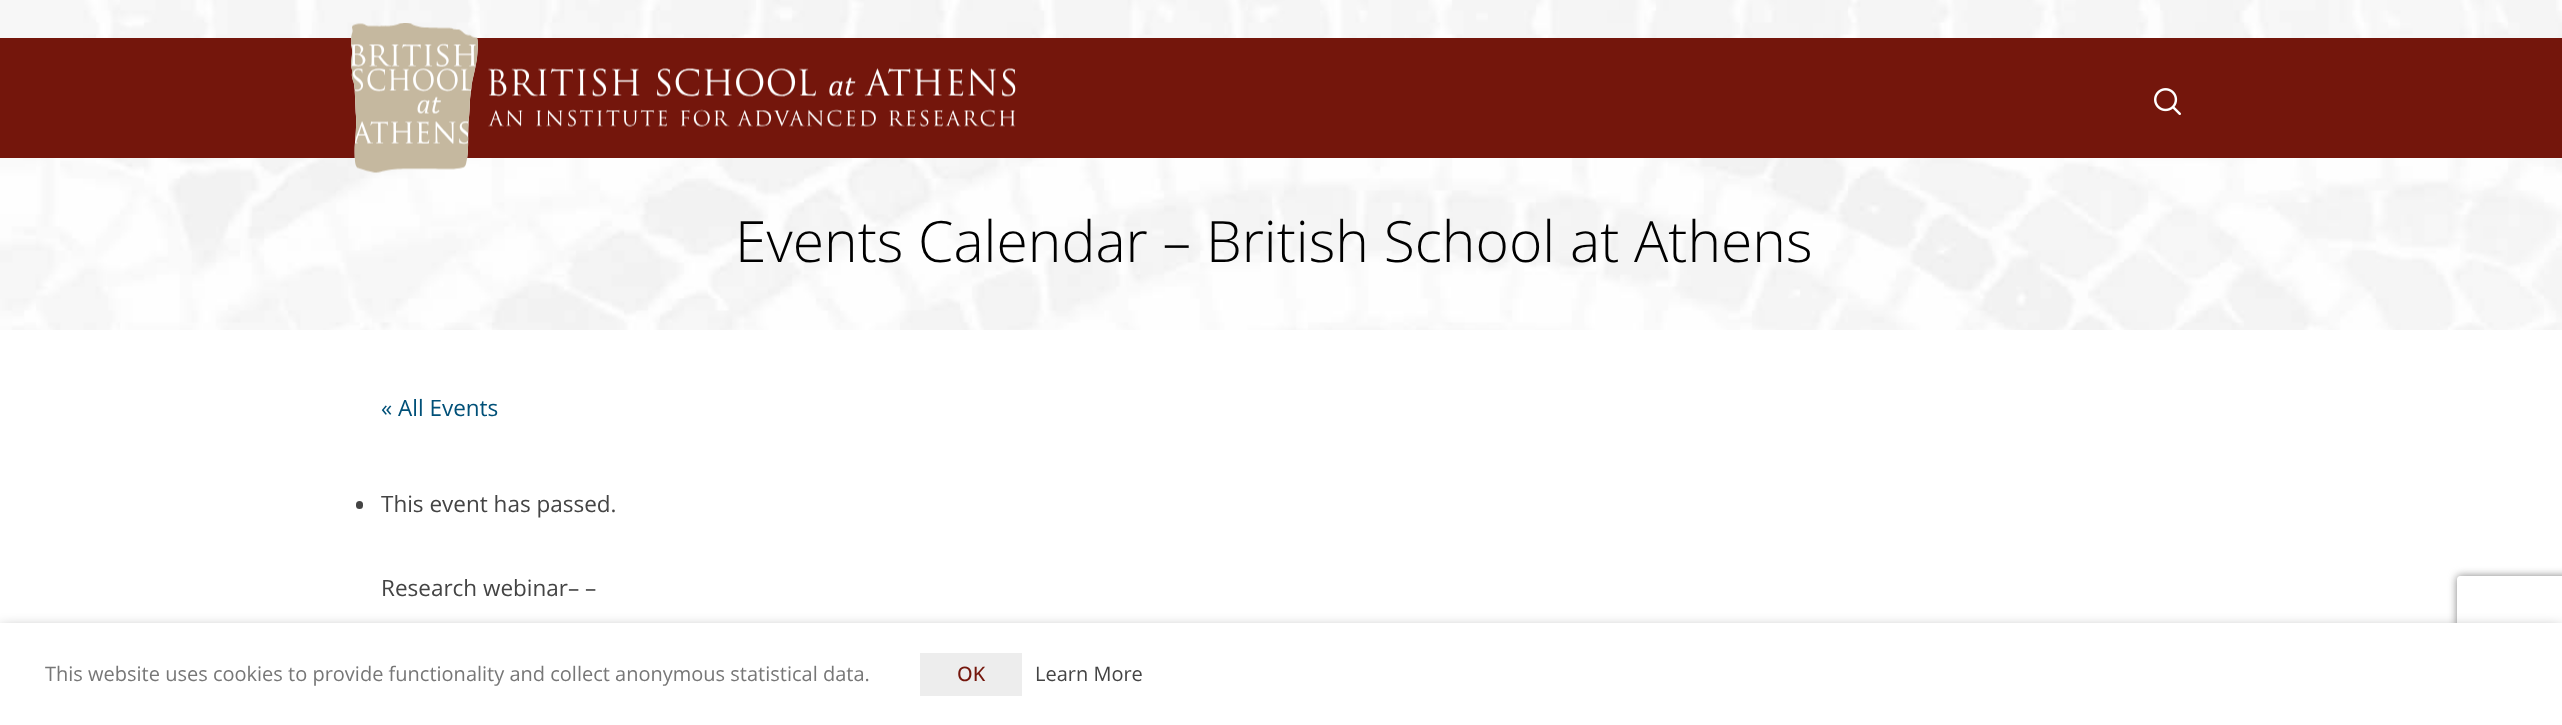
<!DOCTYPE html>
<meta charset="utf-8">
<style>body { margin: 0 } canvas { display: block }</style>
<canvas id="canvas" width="2562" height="725"></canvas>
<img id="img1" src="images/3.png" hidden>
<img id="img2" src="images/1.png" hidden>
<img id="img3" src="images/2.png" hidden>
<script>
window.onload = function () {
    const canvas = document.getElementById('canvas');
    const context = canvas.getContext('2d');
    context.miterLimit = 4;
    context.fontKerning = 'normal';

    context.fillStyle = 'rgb(255, 255, 255)';
    context.fillRect(0, 0, 2562, 725);
    context.drawImage(document.getElementById('img1'), 0, 0, 2562, 330);
    context.fillStyle = 'rgb(116, 22, 12)';
    context.fillRect(0, 38, 2562, 120);
    context.drawImage(document.getElementById('img2'), 351, 23, 665, 150);
    context.drawImage(document.getElementById('img3'), 2154, 88, 27, 27);
    context.fillStyle = 'rgb(68, 68, 68)';
    context.beginPath();
    context.roundRect(356, 501, 7, 8, 3.5);
    context.fill();
    context.fillStyle = 'rgba(0, 0, 0, 0.5)';
    context.filter = 'blur(7.5px)';
    context.beginPath();
    context.rect(0, 630, 2562, 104);
    context.fill();
    context.filter = 'none';
    context.save();
    context.beginPath();
    context.moveTo(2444, 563);
    context.lineTo(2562, 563);
    context.lineTo(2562, 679);
    context.lineTo(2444, 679);
    context.closePath();
    context.moveTo(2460, 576);
    context.lineTo(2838, 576);
    context.bezierCurveTo(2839.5, 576, 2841, 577.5, 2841, 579);
    context.lineTo(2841, 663);
    context.bezierCurveTo(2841, 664.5, 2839.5, 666, 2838, 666);
    context.lineTo(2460, 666);
    context.bezierCurveTo(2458.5, 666, 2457, 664.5, 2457, 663);
    context.lineTo(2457, 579);
    context.bezierCurveTo(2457, 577.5, 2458.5, 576, 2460, 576);
    context.closePath();
    context.clip('evenodd');
    context.fillStyle = 'rgb(128, 128, 128)';
    context.filter = 'blur(4px)';
    context.beginPath();
    context.roundRect(2457, 576, 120, 90, 3);
    context.fill();
    context.filter = 'none';
    context.restore();
    context.fillStyle = 'rgb(255, 255, 255)';
    context.fillRect(0, 623, 2562, 102);
    context.fillStyle = 'rgb(237, 237, 237)';
    context.fillRect(920, 653, 102, 43);
    context.font = '300 57px Open Sans';
    context.fillStyle = 'rgb(0, 0, 0)';
    context.fillText('Events Calendar – British School at Athens', 735, 262);
    context.font = '22.5px Open Sans';
    context.fillStyle = 'rgb(0, 80, 120)';
    context.fillText('« All Events', 381, 416);
    context.fillStyle = 'rgb(68, 68, 68)';
    context.fillText('This event has passed.', 381, 512);
    context.fillText('Research webinar– –', 381, 596);
    context.font = '20px Open Sans';
    context.fillStyle = 'rgb(119, 119, 119)';
    context.fillText('This website uses cookies to provide functionality and collect anonymous statistical data.', 45, 681);
    context.font = '500 20px Open Sans';
    context.fillStyle = 'rgb(116, 22, 12)';
    context.fillText('OK', 957, 681);
    context.font = '20px Open Sans';
    context.fillStyle = 'rgb(68, 68, 68)';
    context.fillText('Learn More', 1035, 681);
};
</script>
